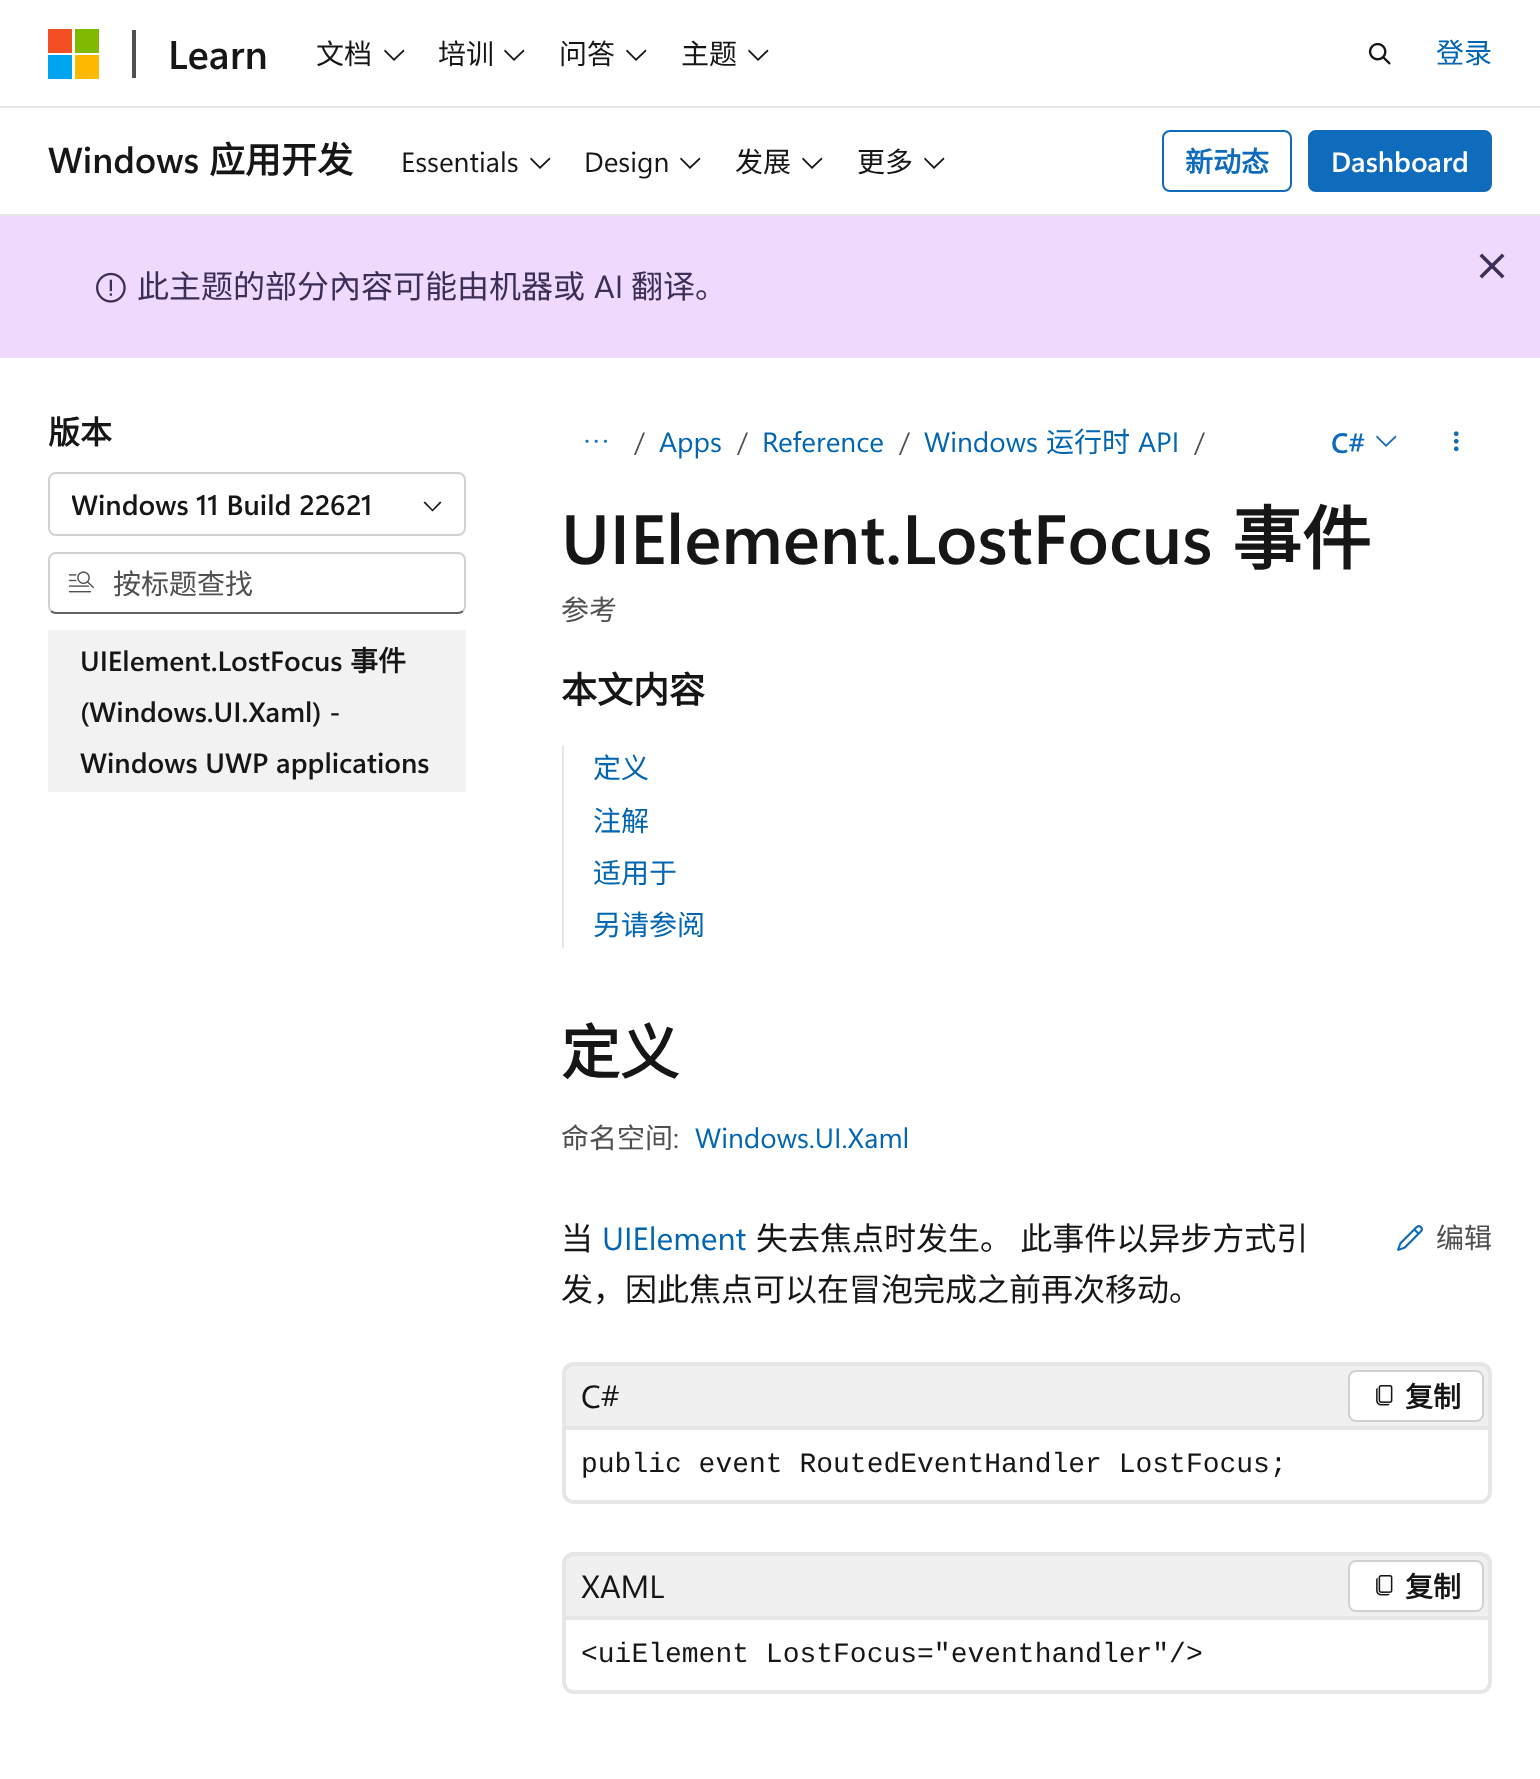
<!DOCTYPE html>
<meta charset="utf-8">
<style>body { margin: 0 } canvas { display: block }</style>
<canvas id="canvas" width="1540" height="1779"></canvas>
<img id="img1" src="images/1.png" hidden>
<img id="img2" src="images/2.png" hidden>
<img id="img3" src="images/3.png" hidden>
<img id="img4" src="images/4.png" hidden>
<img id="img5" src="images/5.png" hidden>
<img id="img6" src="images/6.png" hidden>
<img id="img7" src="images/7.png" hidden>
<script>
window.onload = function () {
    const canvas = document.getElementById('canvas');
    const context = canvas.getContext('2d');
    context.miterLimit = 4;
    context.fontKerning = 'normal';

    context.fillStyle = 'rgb(255, 255, 255)';
    context.fillRect(0, 0, 1540, 1779);
    context.fillStyle = 'rgb(230, 230, 230)';
    context.fillRect(0, 106, 1540, 2);
    context.fillStyle = 'rgb(242, 80, 34)';
    context.fillRect(48, 29, 24, 24);
    context.fillStyle = 'rgb(127, 186, 0)';
    context.fillRect(75, 29, 24, 24);
    context.fillStyle = 'rgb(0, 164, 239)';
    context.fillRect(48, 55, 24, 24);
    context.fillStyle = 'rgb(255, 185, 0)';
    context.fillRect(75, 55, 24, 24);
    context.fillStyle = 'rgb(80, 80, 80)';
    context.fillRect(132, 30, 4, 48);
    context.fillStyle = 'rgb(22, 22, 22)';
    context.beginPath();
    context.moveTo(394, 61);
    context.lineTo(384, 51);
    context.lineTo(385, 49.5);
    context.lineTo(394, 58.5);
    context.lineTo(403.5, 49.5);
    context.lineTo(404.5, 51);
    context.closePath();
    context.fill();
    context.beginPath();
    context.moveTo(514, 61);
    context.lineTo(504, 51);
    context.lineTo(505, 49.5);
    context.lineTo(514, 58.5);
    context.lineTo(523.5, 49.5);
    context.lineTo(524.5, 51);
    context.closePath();
    context.fill();
    context.beginPath();
    context.moveTo(636, 61);
    context.lineTo(626, 51);
    context.lineTo(627, 49.5);
    context.lineTo(636, 58.5);
    context.lineTo(645.5, 49.5);
    context.lineTo(646.5, 51);
    context.closePath();
    context.fill();
    context.beginPath();
    context.moveTo(758, 61);
    context.lineTo(748, 51);
    context.lineTo(749, 49.5);
    context.lineTo(758, 58.5);
    context.lineTo(767.5, 49.5);
    context.lineTo(768.5, 51);
    context.closePath();
    context.fill();
    context.drawImage(document.getElementById('img1'), 1368, 42, 23, 23);
    context.fillStyle = 'rgb(230, 230, 230)';
    context.fillRect(0, 214, 1540, 2);
    context.fillStyle = 'rgb(22, 22, 22)';
    context.beginPath();
    context.moveTo(540, 169);
    context.lineTo(530, 159);
    context.lineTo(531, 157.5);
    context.lineTo(540, 166.5);
    context.lineTo(549.5, 157.5);
    context.lineTo(550.5, 159);
    context.closePath();
    context.fill();
    context.beginPath();
    context.moveTo(690, 169);
    context.lineTo(680, 159);
    context.lineTo(681, 157.5);
    context.lineTo(690, 166.5);
    context.lineTo(699.5, 157.5);
    context.lineTo(700.5, 159);
    context.closePath();
    context.fill();
    context.beginPath();
    context.moveTo(812, 169);
    context.lineTo(802, 159);
    context.lineTo(803, 157.5);
    context.lineTo(812, 166.5);
    context.lineTo(821.5, 157.5);
    context.lineTo(822.5, 159);
    context.closePath();
    context.fill();
    context.beginPath();
    context.moveTo(934, 169);
    context.lineTo(924, 159);
    context.lineTo(925, 157.5);
    context.lineTo(934, 166.5);
    context.lineTo(943.5, 157.5);
    context.lineTo(944.5, 159);
    context.closePath();
    context.fill();
    context.beginPath();
    context.roundRect(1163, 131, 128, 60, 7);
    context.strokeStyle = 'rgb(15, 108, 189)';
    context.lineWidth = 2;
    context.stroke();
    context.fillStyle = 'rgb(15, 108, 189)';
    context.beginPath();
    context.roundRect(1309, 131, 182, 60, 7);
    context.fill();
    context.stroke();
    context.fillStyle = 'rgb(239, 217, 253)';
    context.fillRect(0, 216, 1540, 142);
    context.fillStyle = 'rgb(59, 46, 88)';
    context.beginPath();
    context.moveTo(1482, 253.5);
    context.lineTo(1504.5, 276);
    context.lineTo(1502, 278.5);
    context.lineTo(1479.5, 256);
    context.closePath();
    context.fill();
    context.beginPath();
    context.moveTo(1502, 253.5);
    context.lineTo(1504.5, 256);
    context.lineTo(1482, 278.5);
    context.lineTo(1479.5, 276);
    context.closePath();
    context.fill();
    context.drawImage(document.getElementById('img2'), 96, 272, 30, 31);
    context.beginPath();
    context.roundRect(49, 473, 416, 62, 7);
    context.strokeStyle = 'rgb(209, 209, 209)';
    context.stroke();
    context.fillStyle = 'rgb(22, 22, 22)';
    context.beginPath();
    context.moveTo(432.5, 511.5);
    context.lineTo(423.5, 502.5);
    context.lineTo(425, 501.5);
    context.lineTo(432.5, 509.5);
    context.lineTo(440, 501.5);
    context.lineTo(441.5, 502.5);
    context.closePath();
    context.fill();
    context.beginPath();
    context.moveTo(463, 611);
    context.bezierCurveTo(461.5, 612.5, 460, 613, 458, 613);
    context.lineTo(56, 613);
    context.bezierCurveTo(54, 613, 52.5, 612.5, 51, 611);
    context.strokeStyle = 'rgb(97, 97, 97)';
    context.stroke();
    context.beginPath();
    context.moveTo(51, 611);
    context.bezierCurveTo(49.5, 609.5, 49, 608, 49, 606);
    context.lineTo(49, 560);
    context.bezierCurveTo(49, 558, 49.5, 556.5, 51, 555);
    context.bezierCurveTo(52.5, 553.5, 54, 553, 56, 553);
    context.lineTo(458, 553);
    context.bezierCurveTo(460, 553, 461.5, 553.5, 463, 555);
    context.bezierCurveTo(464.5, 556.5, 465, 558, 465, 560);
    context.lineTo(465, 606);
    context.bezierCurveTo(465, 608, 464.5, 609.5, 463, 611);
    context.strokeStyle = 'rgb(209, 209, 209)';
    context.stroke();
    context.drawImage(document.getElementById('img3'), 68, 571, 26, 22);
    context.fillStyle = 'rgb(242, 242, 242)';
    context.fillRect(48, 630, 418, 162);
    context.drawImage(document.getElementById('img4'), 585, 439, 22, 4);
    context.fillStyle = 'rgb(15, 108, 189)';
    context.beginPath();
    context.moveTo(1386, 447);
    context.lineTo(1376, 437);
    context.lineTo(1377, 435.5);
    context.lineTo(1386, 444.5);
    context.lineTo(1395.5, 435.5);
    context.lineTo(1396.5, 437);
    context.closePath();
    context.fill();
    context.drawImage(document.getElementById('img5'), 1453, 431, 6, 21);
    context.fillStyle = 'rgb(230, 230, 230)';
    context.fillRect(562, 746, 2, 202);
    context.drawImage(document.getElementById('img6'), 1397, 1225, 26, 26);
    context.fillStyle = 'rgb(240, 240, 240)';
    context.beginPath();
    context.roundRect(562, 1362, 930, 64, [12, 12, 0, 0]);
    context.fill();
    context.fillStyle = 'rgb(230, 230, 230)';
    context.beginPath();
    context.moveTo(574, 1362);
    context.lineTo(1480, 1362);
    context.bezierCurveTo(1487, 1362, 1492, 1367, 1492, 1374);
    context.lineTo(1492, 1426);
    context.lineTo(562, 1426);
    context.lineTo(562, 1374);
    context.bezierCurveTo(562, 1367, 567, 1362, 574, 1362);
    context.closePath();
    context.moveTo(574, 1366);
    context.lineTo(1480, 1366);
    context.bezierCurveTo(1484, 1366, 1488, 1370, 1488, 1374);
    context.lineTo(1488, 1426);
    context.lineTo(566, 1426);
    context.lineTo(566, 1374);
    context.bezierCurveTo(566, 1370, 570, 1366, 574, 1366);
    context.closePath();
    context.fill('evenodd');
    context.fillStyle = 'rgb(255, 255, 255)';
    context.beginPath();
    context.roundRect(1349, 1371, 134, 50, 7);
    context.fill();
    context.stroke();
    context.drawImage(document.getElementById('img7'), 1376, 1385, 17, 21);
    context.beginPath();
    context.roundRect(564, 1428, 926, 74, [0, 0, 10, 10]);
    context.strokeStyle = 'rgb(230, 230, 230)';
    context.lineWidth = 4;
    context.stroke();
    context.fillStyle = 'rgb(240, 240, 240)';
    context.beginPath();
    context.roundRect(562, 1552, 930, 64, [12, 12, 0, 0]);
    context.fill();
    context.fillStyle = 'rgb(230, 230, 230)';
    context.beginPath();
    context.moveTo(574, 1552);
    context.lineTo(1480, 1552);
    context.bezierCurveTo(1487, 1552, 1492, 1557, 1492, 1564);
    context.lineTo(1492, 1616);
    context.lineTo(562, 1616);
    context.lineTo(562, 1564);
    context.bezierCurveTo(562, 1557, 567, 1552, 574, 1552);
    context.closePath();
    context.moveTo(574, 1556);
    context.lineTo(1480, 1556);
    context.bezierCurveTo(1484, 1556, 1488, 1560, 1488, 1564);
    context.lineTo(1488, 1616);
    context.lineTo(566, 1616);
    context.lineTo(566, 1564);
    context.bezierCurveTo(566, 1560, 570, 1556, 574, 1556);
    context.closePath();
    context.fill('evenodd');
    context.fillStyle = 'rgb(255, 255, 255)';
    context.beginPath();
    context.roundRect(1349, 1561, 134, 50, 7);
    context.fill();
    context.strokeStyle = 'rgb(209, 209, 209)';
    context.lineWidth = 2;
    context.stroke();
    context.drawImage(document.getElementById('img7'), 1376, 1575, 17, 21);
    context.beginPath();
    context.roundRect(564, 1618, 926, 74, [0, 0, 10, 10]);
    context.strokeStyle = 'rgb(230, 230, 230)';
    context.lineWidth = 4;
    context.stroke();
    context.font = '600 40px Segoe UI';
    context.fillStyle = 'rgb(22, 22, 22)';
    context.fillText('Learn', 168, 69);
    context.font = '28px Noto Sans CJK SC';
    context.fillText('文档', 316, 64);
    context.fillText('培训', 438, 64);
    context.fillText('问答', 559, 64);
    context.fillText('主题', 681, 64);
    context.fillStyle = 'rgb(0, 101, 179)';
    context.fillText('登录', 1436, 63);
    context.font = '600 36px Segoe UI';
    context.fillStyle = 'rgb(22, 22, 22)';
    context.fillText('Windows', 48, 173);
    context.font = 'bold 36px Noto Sans CJK SC';
    context.fillText('应用开发', 209, 173);
    context.font = '28px Segoe UI';
    context.fillText('Essentials', 401, 172);
    context.fillText('Design', 584, 172);
    context.font = '28px Noto Sans CJK SC';
    context.fillText('发展', 735, 172);
    context.fillText('更多', 857, 172);
    context.font = 'bold 28px Noto Sans CJK SC';
    context.fillStyle = 'rgb(15, 108, 189)';
    context.fillText('新动态', 1185, 172);
    context.font = '600 28px Segoe UI';
    context.fillStyle = 'rgb(255, 255, 255)';
    context.fillText('Dashboard', 1331, 172);
    context.font = '32px Noto Sans CJK SC';
    context.fillStyle = 'rgb(59, 46, 88)';
    context.fillText('此主题的部分內容可能由机器或', 137, 298);
    context.font = '32px Segoe UI';
    context.fillText('AI', 594, 298);
    context.font = '32px Noto Sans CJK SC';
    context.fillText('翻译。', 631, 298);
    context.font = 'bold 32px Noto Sans CJK SC';
    context.fillStyle = 'rgb(22, 22, 22)';
    context.fillText('版本', 48, 444);
    context.save();
    context.beginPath();
    context.rect(72, 484, 300, 42);
    context.clip();
    context.font = '600 28px Segoe UI';
    context.fillText('Windows 11 Build 22621', 71, 515);
    context.restore();
    context.font = '28px Noto Sans CJK SC';
    context.fillStyle = 'rgb(80, 80, 80)';
    context.fillText('按标题查找', 113, 594);
    context.font = '600 28px Segoe UI';
    context.fillStyle = 'rgb(22, 22, 22)';
    context.fillText('UIElement.LostFocus', 80, 671);
    context.font = 'bold 28px Noto Sans CJK SC';
    context.fillText('事件', 350, 671);
    context.font = '600 28px Segoe UI';
    context.fillText('(Windows.UI.Xaml) -', 80, 722);
    context.fillText('Windows UWP applications', 80, 773);
    context.font = '28px Segoe UI';
    context.fillStyle = 'rgb(80, 80, 80)';
    context.fillText('/', 634, 452);
    context.fillStyle = 'rgb(0, 101, 179)';
    context.fillText('Apps', 659, 452);
    context.fillStyle = 'rgb(80, 80, 80)';
    context.fillText('/', 737, 452);
    context.fillStyle = 'rgb(0, 101, 179)';
    context.fillText('Reference', 762, 452);
    context.fillStyle = 'rgb(80, 80, 80)';
    context.fillText('/', 899, 452);
    context.fillStyle = 'rgb(0, 101, 179)';
    context.fillText('Windows', 924, 452);
    context.font = '28px Noto Sans CJK SC';
    context.fillText('运行时', 1046, 452);
    context.font = '28px Segoe UI';
    context.fillText('API', 1138, 452);
    context.fillStyle = 'rgb(80, 80, 80)';
    context.fillText('/', 1194, 452);
    context.font = '600 28px Segoe UI';
    context.fillStyle = 'rgb(15, 108, 189)';
    context.fillText('C#', 1331, 453);
    context.font = '600 69.5px Segoe UI';
    context.fillStyle = 'rgb(22, 22, 22)';
    context.fillText('UIElement.LostFocus', 561, 564);
    context.font = 'bold 69.5px Noto Sans CJK SC';
    context.fillText('事件', 1232, 564);
    context.font = '28px Noto Sans CJK SC';
    context.fillStyle = 'rgb(80, 80, 80)';
    context.fillText('参考', 561, 620);
    context.font = 'bold 36px Noto Sans CJK SC';
    context.fillStyle = 'rgb(22, 22, 22)';
    context.fillText('本文内容', 561, 703);
    context.font = '28px Noto Sans CJK SC';
    context.fillStyle = 'rgb(0, 101, 179)';
    context.fillText('定义', 593, 778);
    context.fillText('注解', 593, 831);
    context.fillText('适用于', 593, 883);
    context.fillText('另请参阅', 593, 935);
    context.font = 'bold 59px Noto Sans CJK SC';
    context.fillStyle = 'rgb(22, 22, 22)';
    context.fillText('定义', 561, 1074);
    context.font = '28px Noto Sans CJK SC';
    context.fillStyle = 'rgb(80, 80, 80)';
    context.fillText('命名空间', 561, 1148);
    context.font = '28px Segoe UI';
    context.fillText(':', 673, 1148);
    context.fillStyle = 'rgb(0, 101, 179)';
    context.fillText('Windows.UI.Xaml', 695, 1148);
    context.font = '32px Noto Sans CJK SC';
    context.fillStyle = 'rgb(22, 22, 22)';
    context.fillText('当', 561, 1250);
    context.font = '32px Segoe UI';
    context.fillStyle = 'rgb(0, 101, 179)';
    context.fillText('UIElement', 602, 1250);
    context.wordSpacing = '1px';
    context.font = '32px Noto Sans CJK SC';
    context.fillStyle = 'rgb(22, 22, 22)';
    context.fillText('失去焦点时发生。 此事件以异步方式引', 756, 1250);
    context.wordSpacing = '0px';
    context.fillText('发，因此焦点可以在冒泡完成之前再次移动。', 561, 1301);
    context.font = '28px Noto Sans CJK SC';
    context.fillStyle = 'rgb(80, 80, 80)';
    context.fillText('编辑', 1436, 1248);
    context.font = '32px Segoe UI';
    context.fillStyle = 'rgb(22, 22, 22)';
    context.fillText('C#', 581, 1408);
    context.font = 'bold 28px Noto Sans CJK SC';
    context.fillText('复制', 1405, 1407);
    context.font = '28px Liberation Mono';
    context.fillText('public event RoutedEventHandler LostFocus;', 581, 1472);
    context.font = '32px Segoe UI';
    context.fillText('XAML', 581, 1598);
    context.font = 'bold 28px Noto Sans CJK SC';
    context.fillText('复制', 1405, 1597);
    context.font = '28px Liberation Mono';
    context.fillText('<uiElement LostFocus="eventhandler"/>', 581, 1662);
};
</script>
